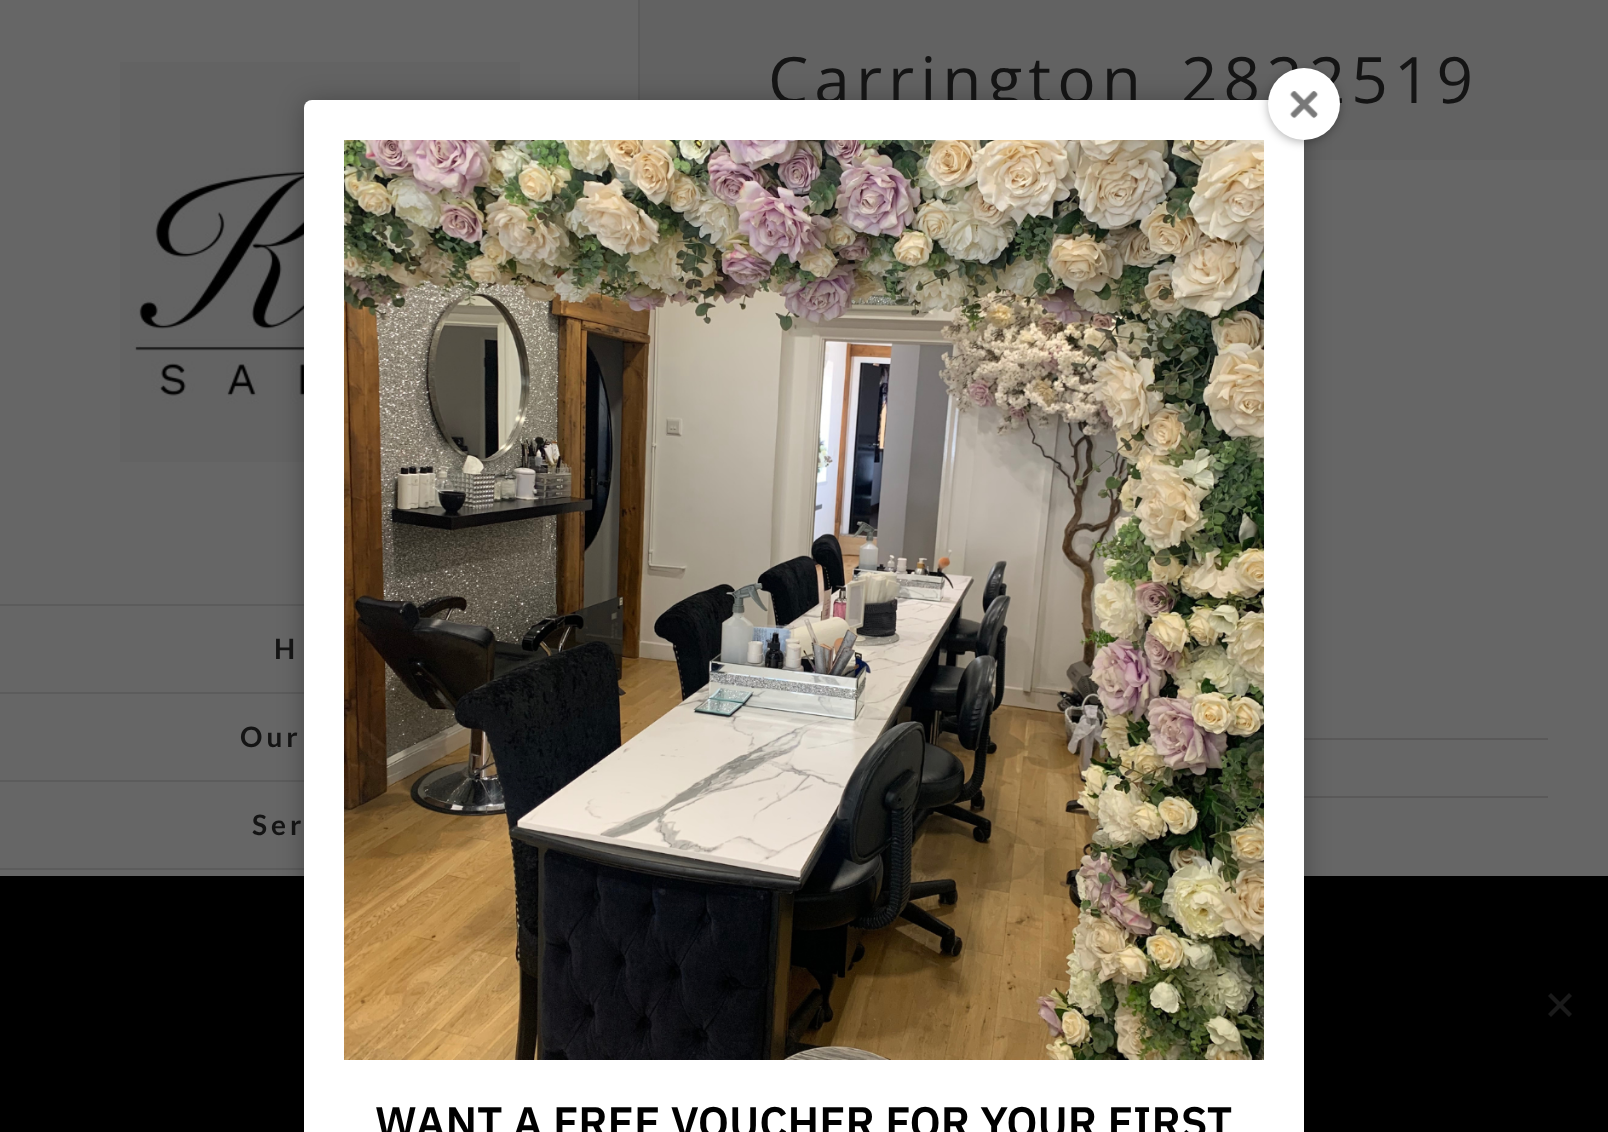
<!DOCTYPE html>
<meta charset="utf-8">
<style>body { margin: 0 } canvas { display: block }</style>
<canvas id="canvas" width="1608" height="1132"></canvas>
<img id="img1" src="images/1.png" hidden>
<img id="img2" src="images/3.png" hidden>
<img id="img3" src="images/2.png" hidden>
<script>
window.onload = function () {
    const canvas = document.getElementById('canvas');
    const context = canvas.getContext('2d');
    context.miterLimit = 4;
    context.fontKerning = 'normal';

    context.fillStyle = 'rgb(102, 102, 102)';
    context.fillRect(0, 0, 1608, 1132);
    context.fillStyle = 'rgb(98, 98, 98)';
    context.fillRect(640, 0, 968, 160);
    context.fillStyle = 'rgb(92, 92, 92)';
    context.fillRect(638, 0, 2, 100);
    context.drawImage(document.getElementById('img1'), 120, 62, 400, 400);
    context.fillRect(0, 604, 304, 2);
    context.fillRect(0, 692, 304, 2);
    context.fillRect(0, 780, 304, 2);
    context.fillRect(0, 868, 304, 2);
    context.fillStyle = 'rgb(90, 89, 89)';
    context.fillRect(1304, 738, 244, 2);
    context.fillRect(1304, 796, 244, 2);
    context.fillStyle = 'rgb(0, 0, 0)';
    context.fillRect(0, 876, 1608, 256);
    context.fillStyle = 'rgb(26, 26, 26)';
    context.beginPath();
    context.moveTo(1569, 993);
    context.lineTo(1572, 996);
    context.lineTo(1551, 1017);
    context.lineTo(1548, 1014);
    context.closePath();
    context.fill();
    context.beginPath();
    context.moveTo(1548, 996);
    context.lineTo(1551, 993);
    context.lineTo(1572, 1014);
    context.lineTo(1569, 1017);
    context.closePath();
    context.fill();
    context.fillStyle = 'rgba(0, 0, 0, 0.3)';
    context.filter = 'blur(13px)';
    context.beginPath();
    context.roundRect(304, 102, 1000, 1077, 8);
    context.fill();
    context.filter = 'none';
    context.letterSpacing = '6px';
    context.font = '64px Open Sans';
    context.fillStyle = 'rgb(20, 20, 20)';
    context.fillText('Carrington_2822519', 768, 103);
    context.letterSpacing = '4px';
    context.font = 'bold 28px Lato';
    context.fillText('H', 274, 659);
    context.fillText('Our', 240, 747);
    context.fillText('Ser', 252, 835);
    context.fillStyle = 'rgb(255, 255, 255)';
    context.beginPath();
    context.roundRect(304, 100, 1000, 1032, [8, 8, 0, 0]);
    context.fill();
    context.drawImage(document.getElementById('img2'), 344, 140, 920, 920);
    context.fillStyle = 'rgba(0, 0, 0, 0.3)';
    context.filter = 'blur(5px)';
    context.beginPath();
    context.roundRect(1268, 70, 72, 72, 36);
    context.fill();
    context.filter = 'none';
    context.fillStyle = 'rgb(255, 255, 255)';
    context.beginPath();
    context.arc(1304, 104, 36, 0, 2 * Math.PI);
    context.fill();
    context.drawImage(document.getElementById('img3'), 1289, 91, 30, 28);
    context.letterSpacing = '0px';
    context.font = '600 44px IBM Plex Sans';
    context.fillStyle = 'rgb(0, 0, 0)';
    context.fillText('WANT A FREE VOUCHER FOR YOUR FIRST', 375, 1138);
};
</script>
